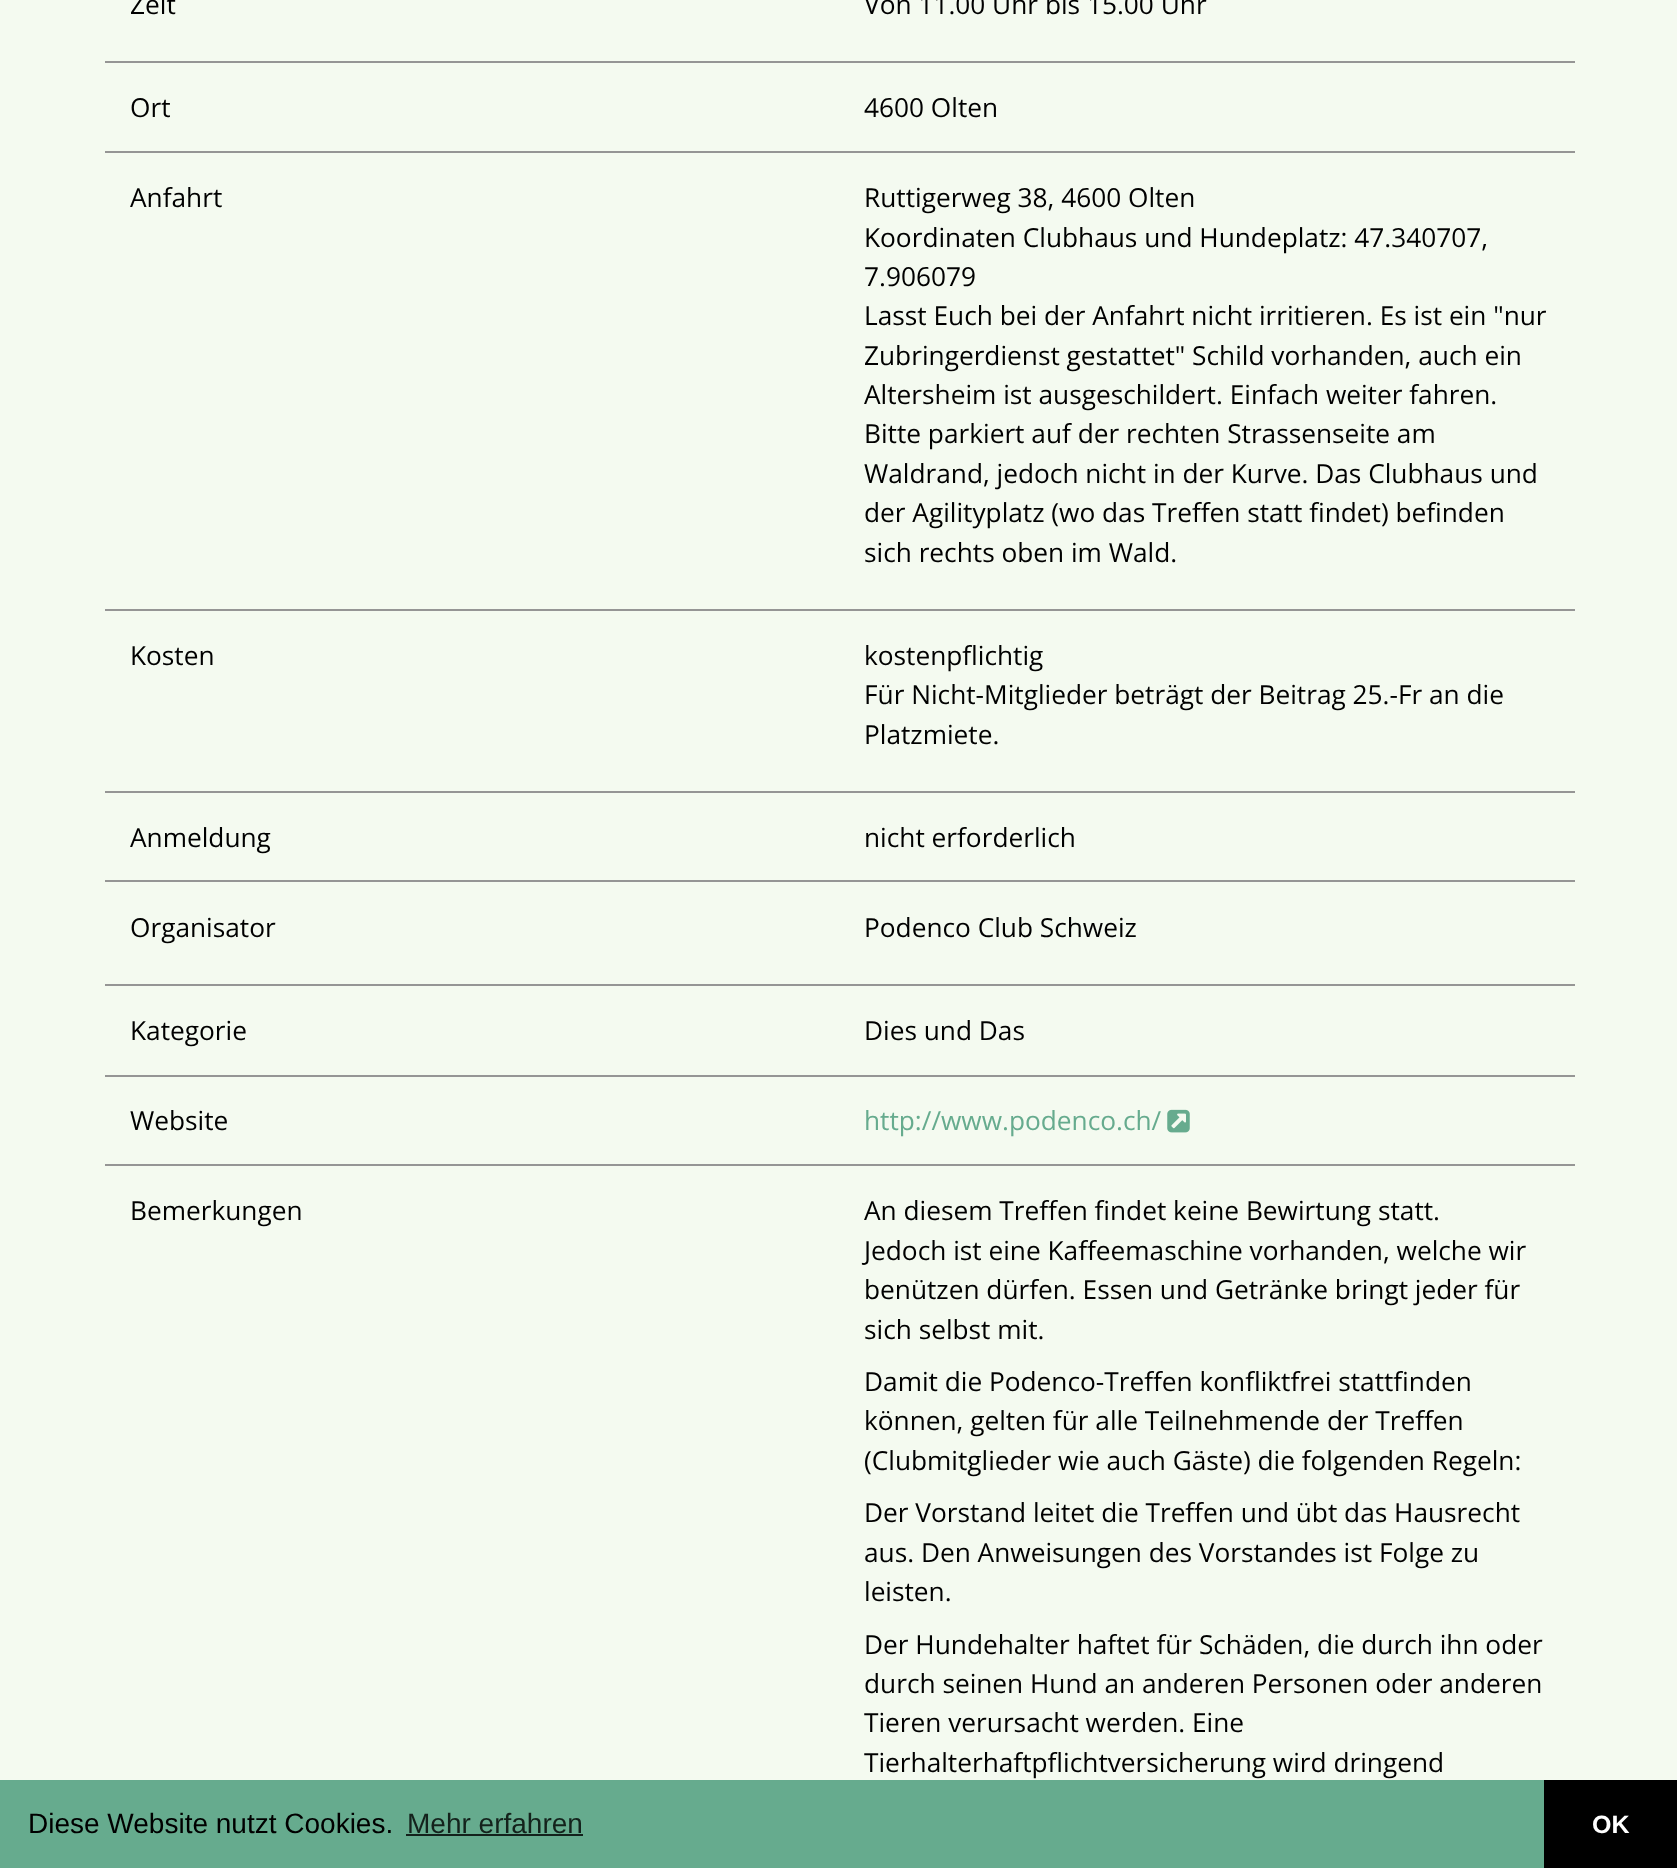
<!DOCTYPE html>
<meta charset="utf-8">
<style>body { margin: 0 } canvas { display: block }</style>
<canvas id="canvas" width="1677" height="1868"></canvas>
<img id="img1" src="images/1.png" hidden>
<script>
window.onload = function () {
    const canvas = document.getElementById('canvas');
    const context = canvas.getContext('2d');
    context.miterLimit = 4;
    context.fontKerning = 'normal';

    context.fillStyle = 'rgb(244, 250, 240)';
    context.fillRect(0, 0, 1677, 1868);
    context.fillStyle = 'rgb(149, 149, 149)';
    context.fillRect(105, 61, 1470, 2);
    context.fillRect(105, 151, 1470, 2);
    context.fillRect(105, 609, 1470, 2);
    context.fillRect(105, 791, 1470, 2);
    context.fillRect(105, 880, 1470, 2);
    context.fillRect(105, 984, 1470, 2);
    context.fillRect(105, 1075, 1470, 2);
    context.drawImage(document.getElementById('img1'), 1167, 1109, 23, 24);
    context.fillRect(105, 1164, 1470, 2);
    context.fillStyle = 'rgb(102, 171, 142)';
    context.fillRect(0, 1780, 1544, 88);
    context.fillStyle = 'rgb(20, 34, 28)';
    context.fillRect(406, 1834, 177, 2);
    context.fillStyle = 'rgb(0, 0, 0)';
    context.fillRect(1544, 1780, 133, 88);
    context.font = '26.25px Open Sans';
    context.fillText('Zeit', 130, 14);
    context.fillText('Von 11.00 Uhr bis 15.00 Uhr', 864, 14);
    context.fillText('Ort', 130, 117);
    context.fillText('4600 Olten', 864, 117);
    context.fillText('Anfahrt', 130, 207);
    context.fillText('Ruttigerweg 38, 4600 Olten', 864, 207);
    context.fillText('Koordinaten Clubhaus und Hundeplatz: 47.340707,', 864, 247);
    context.fillText('7.906079', 864, 286);
    context.fillText('Lasst Euch bei der Anfahrt nicht irritieren. Es ist ein "nur', 864, 325);
    context.fillText('Zubringerdienst gestattet" Schild vorhanden, auch ein', 864, 365);
    context.fillText('Altersheim ist ausgeschildert. Einfach weiter fahren.', 864, 404);
    context.fillText('Bitte parkiert auf der rechten Strassenseite am', 864, 443);
    context.fillText('Waldrand, jedoch nicht in der Kurve. Das Clubhaus und', 864, 483);
    context.fillText('der Agilityplatz (wo das Treffen statt findet) befinden', 864, 522);
    context.fillText('sich rechts oben im Wald.', 864, 562);
    context.fillText('Kosten', 130, 665);
    context.fillText('kostenpflichtig', 864, 665);
    context.fillText('Für Nicht-Mitglieder beträgt der Beitrag 25.-Fr an die', 864, 704);
    context.fillText('Platzmiete.', 864, 744);
    context.fillText('Anmeldung', 130, 847);
    context.fillText('nicht erforderlich', 864, 847);
    context.fillText('Organisator', 130, 937);
    context.fillText('Podenco Club Schweiz', 864, 937);
    context.fillText('Kategorie', 130, 1040);
    context.fillText('Dies und Das', 864, 1040);
    context.fillText('Website', 130, 1130);
    context.fillStyle = 'rgb(102, 171, 142)';
    context.fillText('http://www.podenco.ch/', 864, 1130);
    context.fillStyle = 'rgb(0, 0, 0)';
    context.fillText('Bemerkungen', 130, 1220);
    context.fillText('An diesem Treffen findet keine Bewirtung statt.', 864, 1220);
    context.fillText('Jedoch ist eine Kaffeemaschine vorhanden, welche wir', 864, 1260);
    context.fillText('benützen dürfen. Essen und Getränke bringt jeder für', 864, 1299);
    context.fillText('sich selbst mit.', 864, 1339);
    context.fillText('Damit die Podenco-Treffen konfliktfrei stattfinden', 864, 1391);
    context.fillText('können, gelten für alle Teilnehmende der Treffen', 864, 1430);
    context.fillText('(Clubmitglieder wie auch Gäste) die folgenden Regeln:', 864, 1470);
    context.fillText('Der Vorstand leitet die Treffen und übt das Hausrecht', 864, 1522);
    context.fillText('aus. Den Anweisungen des Vorstandes ist Folge zu', 864, 1562);
    context.fillText('leisten.', 864, 1601);
    context.fillText('Der Hundehalter haftet für Schäden, die durch ihn oder', 864, 1654);
    context.fillText('durch seinen Hund an anderen Personen oder anderen', 864, 1693);
    context.fillText('Tieren verursacht werden. Eine', 864, 1732);
    context.fillText('Tierhalterhaftpflichtversicherung wird dringend', 864, 1772);
    context.font = '28px Liberation Sans';
    context.fillText('Diese Website nutzt Cookies.', 28, 1833);
    context.fillStyle = 'rgb(20, 34, 28)';
    context.fillText('Mehr erfahren', 407, 1833);
    context.font = 'bold 25px Liberation Sans';
    context.fillStyle = 'rgb(255, 255, 255)';
    context.fillText('OK', 1592, 1833);
};
</script>
